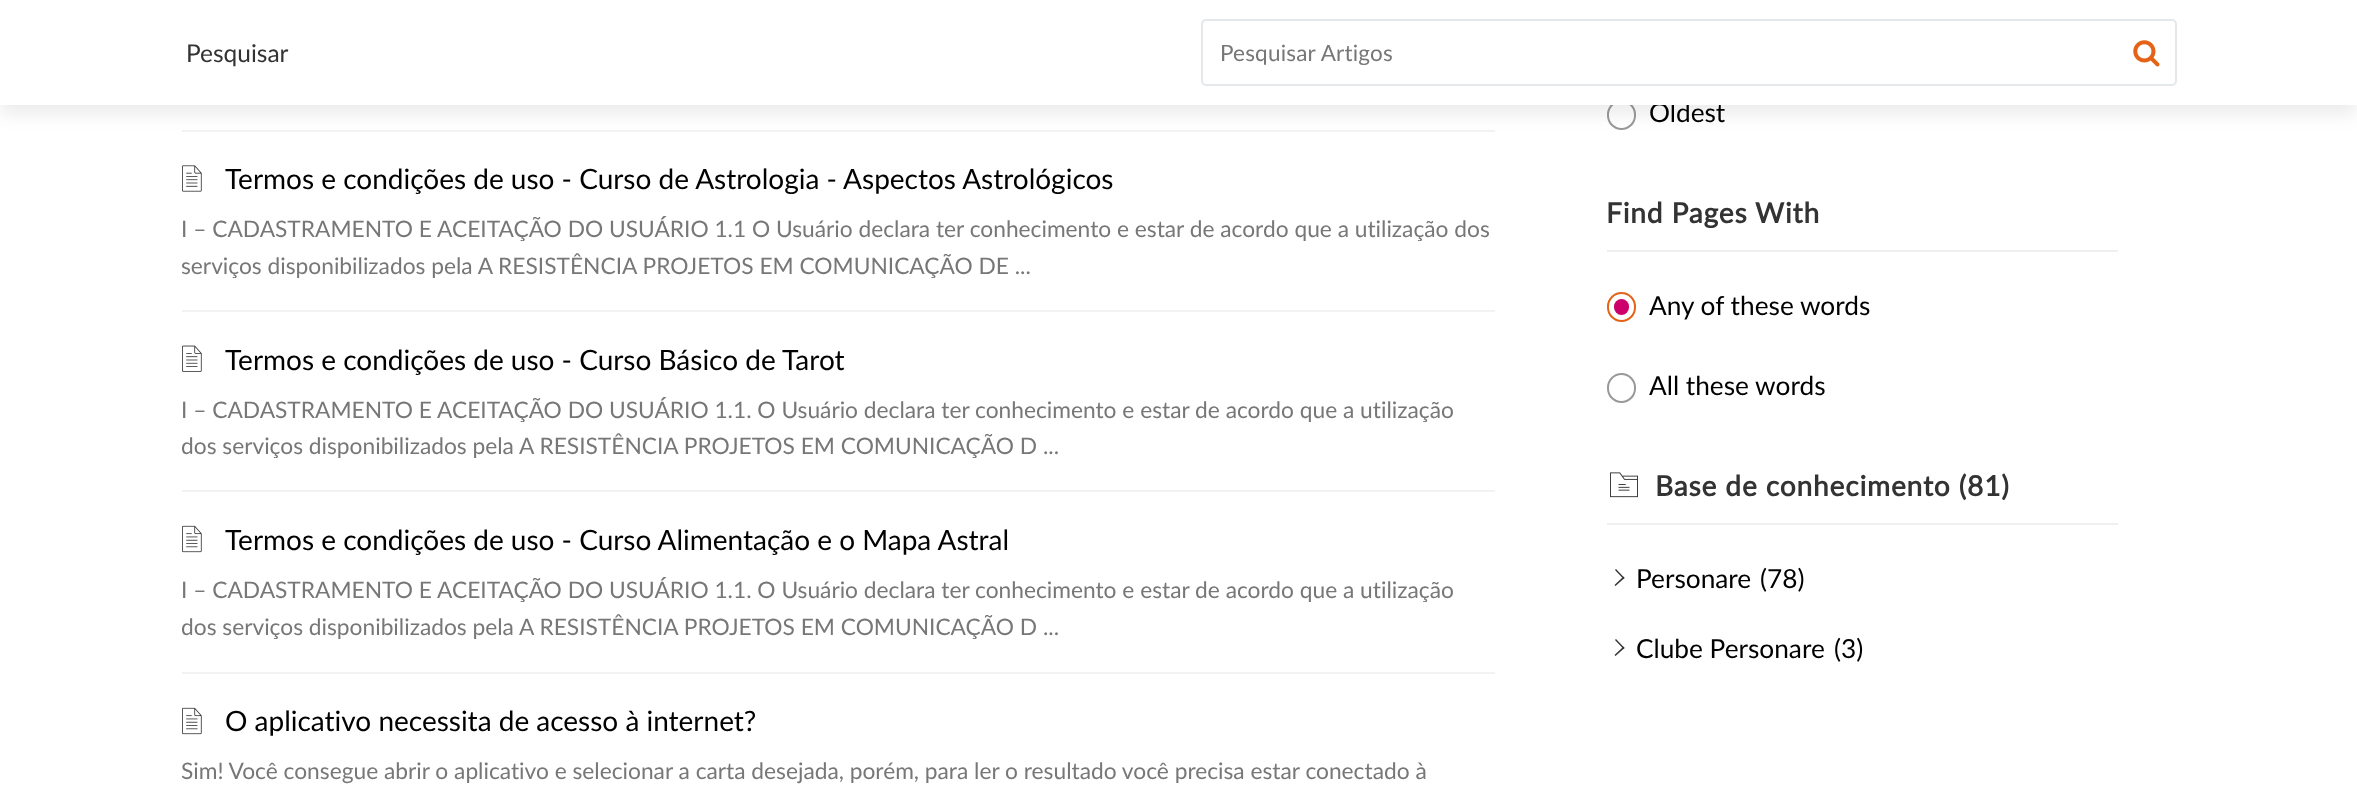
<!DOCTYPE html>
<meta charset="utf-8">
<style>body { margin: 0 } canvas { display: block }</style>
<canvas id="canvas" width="2357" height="810"></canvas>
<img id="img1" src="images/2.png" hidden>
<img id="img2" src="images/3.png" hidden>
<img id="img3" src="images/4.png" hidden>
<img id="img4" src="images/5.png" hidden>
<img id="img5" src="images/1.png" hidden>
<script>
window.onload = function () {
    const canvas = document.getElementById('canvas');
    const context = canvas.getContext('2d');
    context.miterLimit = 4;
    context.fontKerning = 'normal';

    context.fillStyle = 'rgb(255, 255, 255)';
    context.fillRect(0, 0, 2357, 810);
    context.fillStyle = 'rgb(242, 242, 242)';
    context.fillRect(182, 130, 1313, 2);
    context.beginPath();
    context.roundRect(1608, 101, 27, 28, 13.5);
    context.strokeStyle = 'rgb(153, 153, 153)';
    context.lineWidth = 2;
    context.stroke();
    context.fillStyle = 'rgba(0, 0, 0, 0.08)';
    context.filter = 'blur(9px)';
    context.beginPath();
    context.rect(0, 9, 2357, 105);
    context.fill();
    context.filter = 'none';
    context.fillStyle = 'rgb(242, 242, 242)';
    context.fillRect(182, 310, 1313, 2);
    context.drawImage(document.getElementById('img1'), 182, 165, 20, 27);
    context.fillRect(182, 490, 1313, 2);
    context.drawImage(document.getElementById('img2'), 182, 345, 20, 27);
    context.fillRect(182, 672, 1313, 2);
    context.drawImage(document.getElementById('img3'), 182, 525, 20, 28);
    context.drawImage(document.getElementById('img3'), 182, 707, 20, 28);
    context.fillStyle = 'rgb(239, 239, 239)';
    context.fillRect(1607, 250, 511, 2);
    context.beginPath();
    context.roundRect(1608, 293, 27, 28, 13.5);
    context.strokeStyle = 'rgb(228, 99, 23)';
    context.stroke();
    context.fillStyle = 'rgb(205, 0, 107)';
    context.beginPath();
    context.roundRect(1614, 299, 15, 16, 7.5);
    context.fill();
    context.beginPath();
    context.roundRect(1608, 374, 27, 28, 13.5);
    context.strokeStyle = 'rgb(153, 153, 153)';
    context.stroke();
    context.fillStyle = 'rgb(239, 239, 239)';
    context.fillRect(1607, 523, 511, 2);
    context.drawImage(document.getElementById('img4'), 1610, 472, 28, 26);
    context.fillStyle = 'rgb(51, 51, 51)';
    context.beginPath();
    context.moveTo(1623.5, 579);
    context.lineTo(1615, 570);
    context.lineTo(1616, 569);
    context.lineTo(1624.5, 578);
    context.closePath();
    context.fill();
    context.beginPath();
    context.moveTo(1615.5, 586);
    context.lineTo(1614.5, 585);
    context.lineTo(1623.5, 576.5);
    context.lineTo(1624.5, 578);
    context.closePath();
    context.fill();
    context.beginPath();
    context.moveTo(1623.5, 649);
    context.lineTo(1615, 640);
    context.lineTo(1616, 639);
    context.lineTo(1624.5, 648);
    context.closePath();
    context.fill();
    context.beginPath();
    context.moveTo(1615.5, 656);
    context.lineTo(1614.5, 655);
    context.lineTo(1623.5, 646.5);
    context.lineTo(1624.5, 648);
    context.closePath();
    context.fill();
    context.font = '28px Lato';
    context.fillStyle = 'rgb(0, 0, 0)';
    context.fillText('Termos e condições de uso - Curso de Astrologia - Aspectos Astrológicos', 225, 189);
    context.font = '22.75px Lato';
    context.fillStyle = 'rgb(119, 119, 119)';
    context.fillText('I – CADASTRAMENTO E ACEITAÇÃO DO USUÁRIO 1.1 O Usuário declara ter conhecimento e estar de acordo que a utilização dos', 181, 237);
    context.fillText('serviços disponibilizados pela A RESISTÊNCIA PROJETOS EM COMUNICAÇÃO DE ...', 181, 274);
    context.font = '28px Lato';
    context.fillStyle = 'rgb(0, 0, 0)';
    context.fillText('Termos e condições de uso - Curso Básico de Tarot', 225, 370);
    context.font = '22.75px Lato';
    context.fillStyle = 'rgb(119, 119, 119)';
    context.fillText('I – CADASTRAMENTO E ACEITAÇÃO DO USUÁRIO 1.1. O Usuário declara ter conhecimento e estar de acordo que a utilização', 181, 418);
    context.fillText('dos serviços disponibilizados pela A RESISTÊNCIA PROJETOS EM COMUNICAÇÃO D ...', 181, 454);
    context.font = '28px Lato';
    context.fillStyle = 'rgb(0, 0, 0)';
    context.fillText('Termos e condições de uso - Curso Alimentação e o Mapa Astral', 225, 550);
    context.font = '22.75px Lato';
    context.fillStyle = 'rgb(119, 119, 119)';
    context.fillText('I – CADASTRAMENTO E ACEITAÇÃO DO USUÁRIO 1.1. O Usuário declara ter conhecimento e estar de acordo que a utilização', 181, 598);
    context.fillText('dos serviços disponibilizados pela A RESISTÊNCIA PROJETOS EM COMUNICAÇÃO D ...', 181, 635);
    context.font = '28px Lato';
    context.fillStyle = 'rgb(0, 0, 0)';
    context.fillText('O aplicativo necessita de acesso à internet?', 225, 731);
    context.font = '22.75px Lato';
    context.fillStyle = 'rgb(119, 119, 119)';
    context.fillText('Sim! Você consegue abrir o aplicativo e selecionar a carta desejada, porém, para ler o resultado você precisa estar conectado à', 181, 779);
    context.font = '26.25px Lato';
    context.fillStyle = 'rgb(0, 0, 0)';
    context.fillText('Oldest', 1649, 122);
    context.fillStyle = 'rgb(255, 255, 255)';
    context.fillRect(0, 0, 2357, 105);
    context.beginPath();
    context.roundRect(1202, 20, 974, 65, 4);
    context.strokeStyle = 'rgb(229, 232, 234)';
    context.stroke();
    context.drawImage(document.getElementById('img5'), 2133, 40, 27, 27);
    context.letterSpacing = '0.2px';
    context.font = '22.5px Lato';
    context.fillStyle = 'rgb(119, 119, 119)';
    context.fillText('Pesquisar Artigos', 1220, 61);
    context.letterSpacing = '0px';
    context.font = '24.5px Lato';
    context.fillStyle = 'rgb(51, 51, 51)';
    context.fillText('Pesquisar', 186, 62);
    context.letterSpacing = '0.9px';
    context.font = 'bold 28px Lato';
    context.fillText('Find Pages With', 1606, 223);
    context.letterSpacing = '0px';
    context.font = '26.25px Lato';
    context.fillStyle = 'rgb(0, 0, 0)';
    context.fillText('Any of these words', 1649, 315);
    context.fillText('All these words', 1649, 395);
    context.letterSpacing = '0.9px';
    context.font = 'bold 28px Lato';
    context.fillStyle = 'rgb(51, 51, 51)';
    context.fillText('Base de conhecimento (81)', 1655, 496);
    context.letterSpacing = '0px';
    context.font = '26.25px Lato';
    context.fillStyle = 'rgb(0, 0, 0)';
    context.fillText('Personare', 1636, 588);
    context.fillText('(78)', 1760, 588);
    context.fillText('Clube Personare', 1636, 658);
    context.fillText('(3)', 1834, 658);
};
</script>
